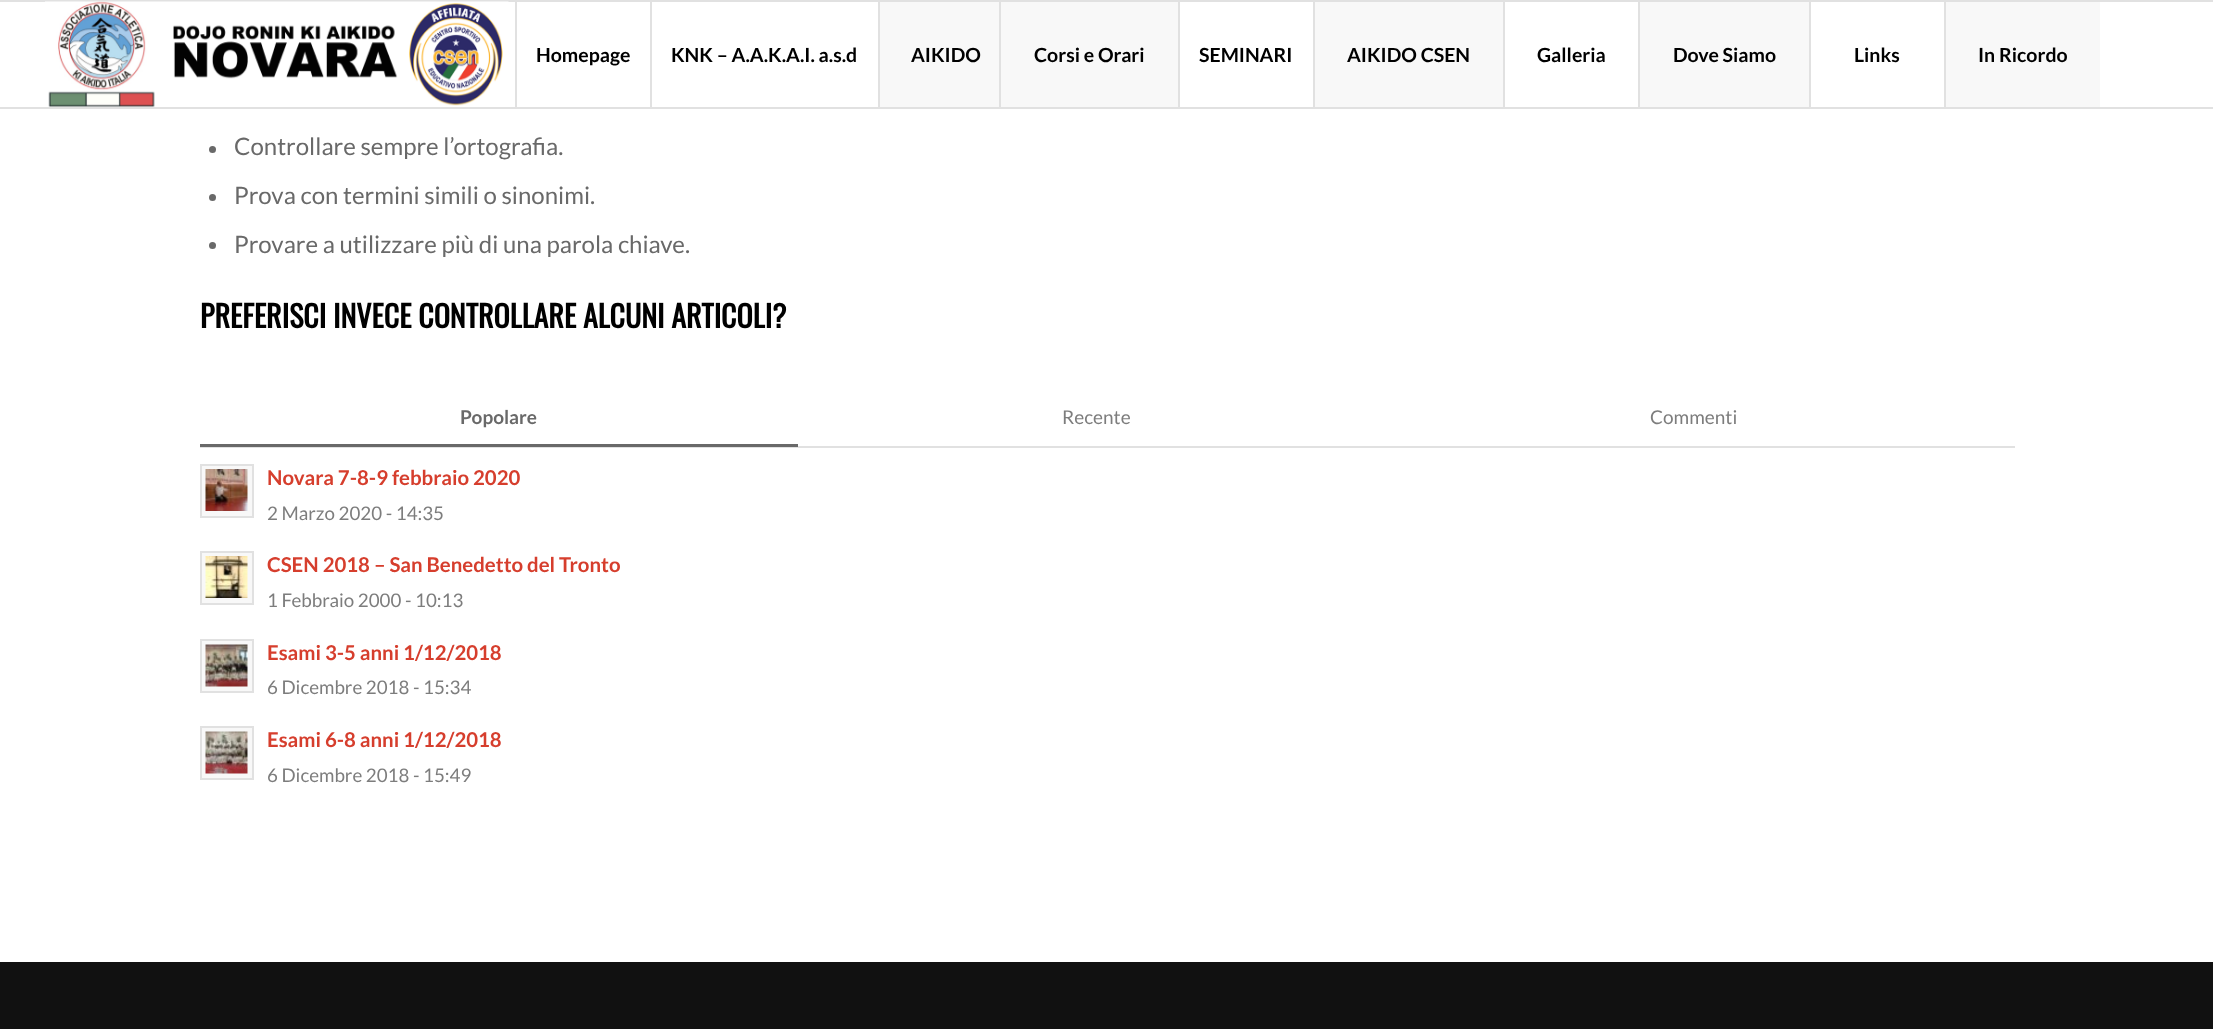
<!DOCTYPE html>
<meta charset="utf-8">
<style>body { margin: 0 } canvas { display: block }</style>
<canvas id="canvas" width="2213" height="1029"></canvas>
<img id="img1" src="images/1.png" hidden>
<img id="img2" src="images/2.png" hidden>
<img id="img3" src="images/3.png" hidden>
<img id="img4" src="images/4.png" hidden>
<img id="img5" src="images/5.png" hidden>
<script>
window.onload = function () {
    const canvas = document.getElementById('canvas');
    const context = canvas.getContext('2d');
    context.miterLimit = 4;
    context.fontKerning = 'normal';

    context.fillStyle = 'rgb(255, 255, 255)';
    context.fillRect(0, 0, 2213, 1029);
    context.fillStyle = 'rgb(225, 225, 225)';
    context.fillRect(0, 0, 2213, 2);
    context.fillRect(0, 107, 2213, 2);
    context.drawImage(document.getElementById('img1'), 45, 1, 464, 106);
    context.fillRect(515, 2, 2, 105);
    context.fillRect(650, 2, 2, 105);
    context.fillStyle = 'rgb(248, 248, 248)';
    context.fillRect(880, 2, 119, 105);
    context.fillStyle = 'rgb(225, 225, 225)';
    context.fillRect(878, 2, 2, 105);
    context.fillStyle = 'rgb(248, 248, 248)';
    context.fillRect(1001, 2, 177, 105);
    context.fillStyle = 'rgb(225, 225, 225)';
    context.fillRect(999, 2, 2, 105);
    context.fillRect(1178, 2, 2, 105);
    context.fillStyle = 'rgb(248, 248, 248)';
    context.fillRect(1315, 2, 188, 105);
    context.fillStyle = 'rgb(225, 225, 225)';
    context.fillRect(1313, 2, 2, 105);
    context.fillRect(1503, 2, 2, 105);
    context.fillStyle = 'rgb(248, 248, 248)';
    context.fillRect(1640, 2, 169, 105);
    context.fillStyle = 'rgb(225, 225, 225)';
    context.fillRect(1638, 2, 2, 105);
    context.fillRect(1809, 2, 2, 105);
    context.fillStyle = 'rgb(248, 248, 248)';
    context.fillRect(1946, 2, 154, 105);
    context.fillStyle = 'rgb(225, 225, 225)';
    context.fillRect(1944, 2, 2, 105);
    context.fillStyle = 'rgb(105, 105, 105)';
    context.beginPath();
    context.arc(212.5, 149.5, 3.5, 0, 2 * Math.PI);
    context.fill();
    context.beginPath();
    context.arc(212.5, 197.5, 3.5, 0, 2 * Math.PI);
    context.fill();
    context.beginPath();
    context.arc(212.5, 245.5, 3.5, 0, 2 * Math.PI);
    context.fill();
    context.fillStyle = 'rgb(225, 225, 225)';
    context.fillRect(200, 446, 1815, 2);
    context.fillStyle = 'rgb(105, 105, 105)';
    context.fillRect(200, 444, 598, 3);
    context.fillStyle = 'rgb(248, 248, 248)';
    context.beginPath();
    context.rect(201, 465, 52, 52);
    context.fill();
    context.strokeStyle = 'rgb(225, 225, 225)';
    context.lineWidth = 2;
    context.stroke();
    context.drawImage(document.getElementById('img2'), 205, 469, 43, 42);
    context.beginPath();
    context.rect(201, 552, 52, 52);
    context.fill();
    context.stroke();
    context.drawImage(document.getElementById('img3'), 205, 556, 43, 42);
    context.beginPath();
    context.rect(201, 640, 52, 52);
    context.fill();
    context.stroke();
    context.drawImage(document.getElementById('img4'), 205, 644, 43, 43);
    context.beginPath();
    context.rect(201, 727, 52, 52);
    context.fill();
    context.stroke();
    context.drawImage(document.getElementById('img5'), 205, 731, 43, 43);
    context.fillStyle = 'rgb(17, 17, 17)';
    context.fillRect(0, 962, 2213, 67);
    context.font = 'bold 19.5px Lato';
    context.fillStyle = 'rgb(0, 0, 0)';
    context.fillText('Homepage', 536, 62);
    context.fillText('KNK – A.A.K.A.I. a.s.d', 671, 62);
    context.fillText('AIKIDO', 911, 62);
    context.fillText('Corsi e Orari', 1034, 62);
    context.fillText('SEMINARI', 1199, 62);
    context.fillText('AIKIDO CSEN', 1347, 62);
    context.fillText('Galleria', 1537, 62);
    context.fillText('Dove Siamo', 1673, 62);
    context.fillText('Links', 1854, 62);
    context.fillText('In Ricordo', 1978, 62);
    context.font = '24px Lato';
    context.fillStyle = 'rgb(105, 105, 105)';
    context.fillText('Controllare sempre l’ortografia.', 234, 155);
    context.fillText('Prova con termini simili o sinonimi.', 234, 204);
    context.fillText('Provare a utilizzare più di una parola chiave.', 234, 253);
    context.font = 'bold 30px Oswald';
    context.fillStyle = 'rgb(0, 0, 0)';
    context.fillText('PREFERISCI INVECE CONTROLLARE ALCUNI ARTICOLI?', 200, 328);
    context.font = 'bold 19px Lato';
    context.fillStyle = 'rgb(105, 105, 105)';
    context.fillText('Popolare', 460, 424);
    context.font = '19px Lato';
    context.fillStyle = 'rgb(125, 125, 125)';
    context.fillText('Recente', 1062, 424);
    context.fillText('Commenti', 1650, 424);
    context.font = 'bold 20.4px Lato';
    context.fillStyle = 'rgb(214, 62, 45)';
    context.fillText('Novara 7-8-9 febbraio 2020', 267, 485);
    context.font = '18.75px Lato';
    context.fillStyle = 'rgb(125, 125, 125)';
    context.fillText('2 Marzo 2020 - 14:35', 267, 520);
    context.font = 'bold 20.4px Lato';
    context.fillStyle = 'rgb(214, 62, 45)';
    context.fillText('CSEN 2018 – San Benedetto del Tronto', 267, 572);
    context.font = '18.75px Lato';
    context.fillStyle = 'rgb(125, 125, 125)';
    context.fillText('1 Febbraio 2000 - 10:13', 267, 607);
    context.font = 'bold 20.4px Lato';
    context.fillStyle = 'rgb(214, 62, 45)';
    context.fillText('Esami 3-5 anni 1/12/2018', 267, 660);
    context.font = '18.75px Lato';
    context.fillStyle = 'rgb(125, 125, 125)';
    context.fillText('6 Dicembre 2018 - 15:34', 267, 694);
    context.font = 'bold 20.4px Lato';
    context.fillStyle = 'rgb(214, 62, 45)';
    context.fillText('Esami 6-8 anni 1/12/2018', 267, 747);
    context.font = '18.75px Lato';
    context.fillStyle = 'rgb(125, 125, 125)';
    context.fillText('6 Dicembre 2018 - 15:49', 267, 782);
};
</script>
